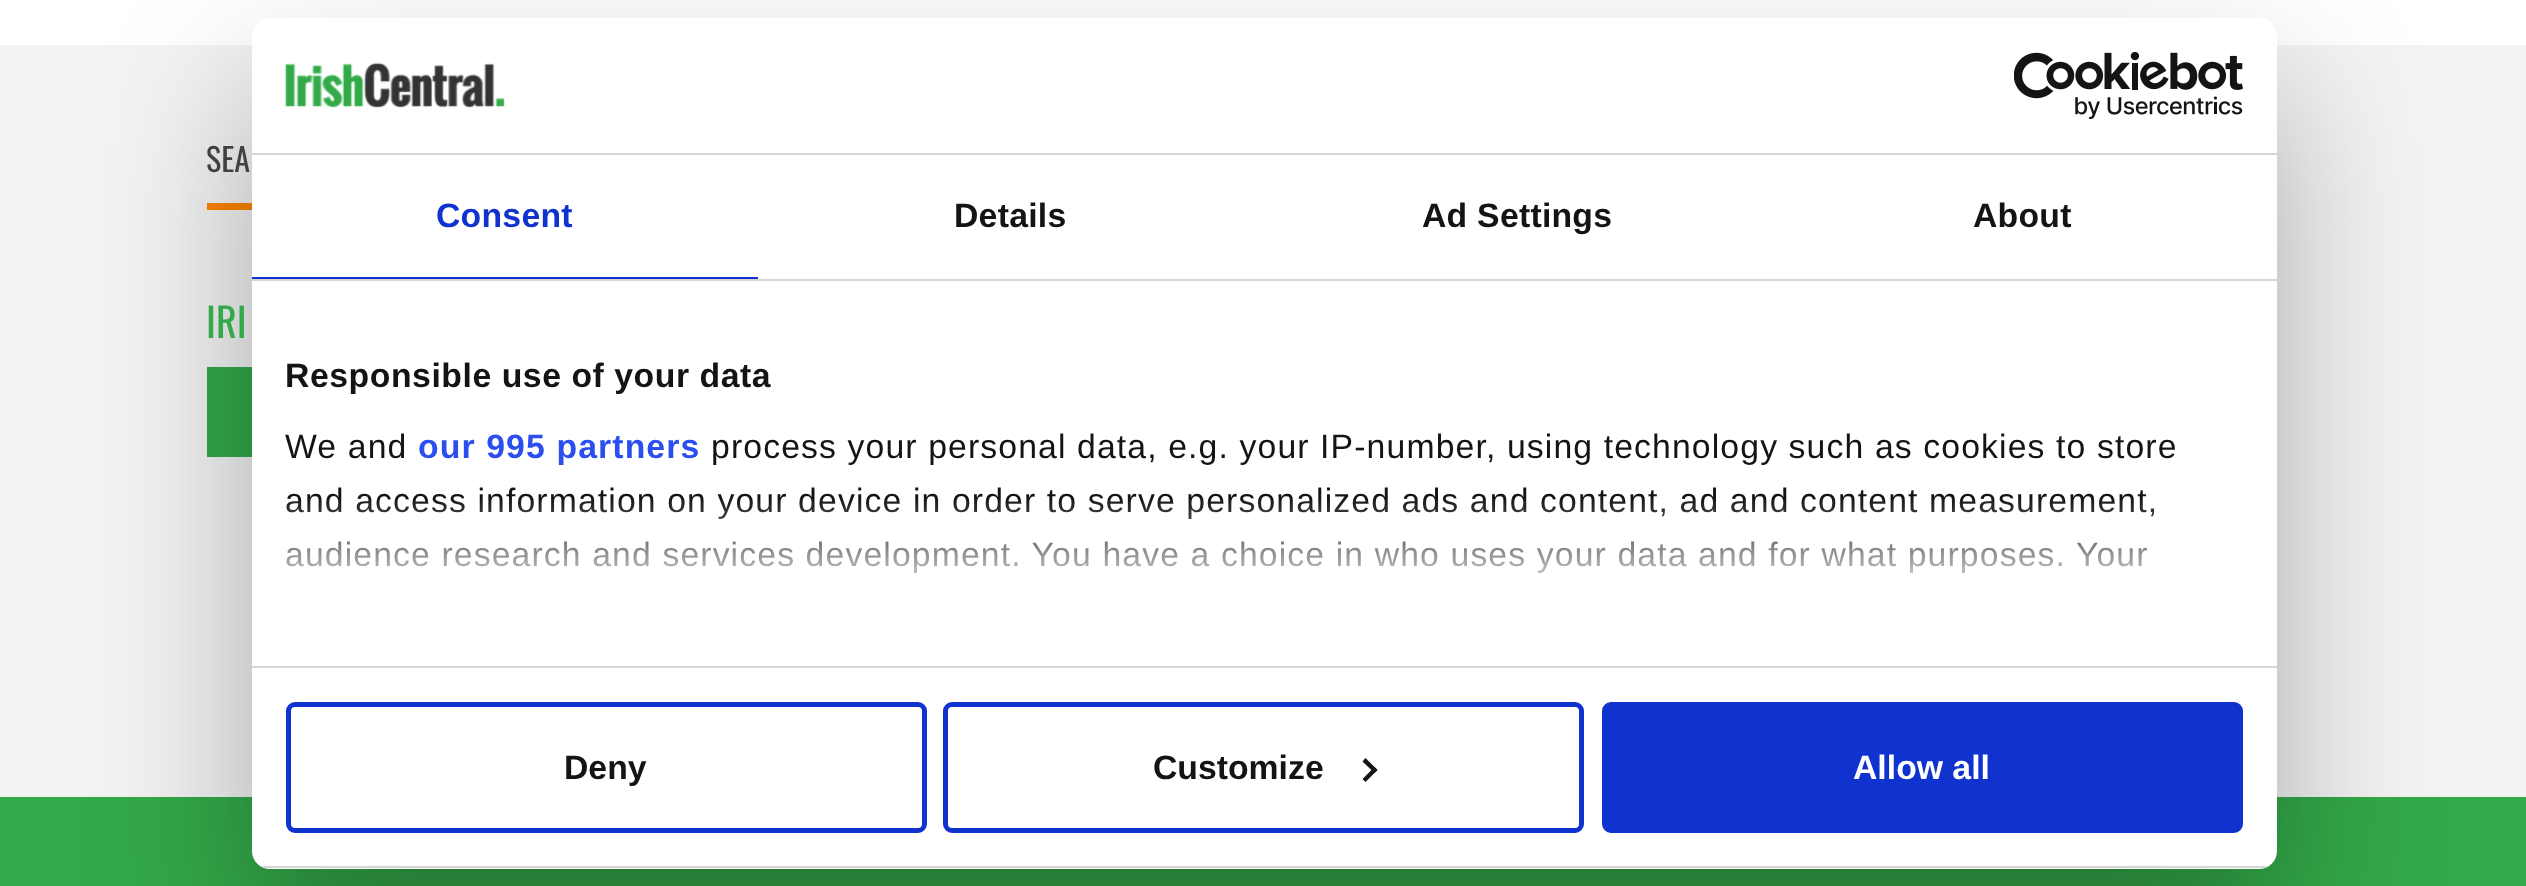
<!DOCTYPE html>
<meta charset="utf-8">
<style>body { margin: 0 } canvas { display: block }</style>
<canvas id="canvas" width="2526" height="886"></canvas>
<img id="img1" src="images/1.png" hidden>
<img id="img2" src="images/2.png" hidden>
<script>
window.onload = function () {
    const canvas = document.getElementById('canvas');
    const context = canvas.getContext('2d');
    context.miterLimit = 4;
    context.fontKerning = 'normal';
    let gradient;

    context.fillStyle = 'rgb(255, 255, 255)';
    context.fillRect(0, 0, 2526, 886);
    context.fillStyle = 'rgb(243, 243, 244)';
    context.fillRect(0, 45, 2526, 752);
    context.fillStyle = 'rgb(255, 133, 0)';
    context.fillRect(207, 203, 45, 7);
    context.fillStyle = 'rgb(51, 169, 73)';
    context.fillRect(207, 367, 45, 90);
    context.fillRect(0, 797, 2526, 89);
    context.fillStyle = 'rgba(0, 0, 0, 0.3)';
    context.filter = 'blur(76.5px)';
    context.beginPath();
    context.roundRect(252, 90, 2025, 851, 18);
    context.fill();
    context.filter = 'none';
    context.fillStyle = 'rgb(255, 255, 255)';
    context.beginPath();
    context.roundRect(252, 18, 2025, 851, 18);
    context.fill();
    context.fillStyle = 'rgb(214, 214, 214)';
    context.fillRect(252, 153, 2025, 2);
    context.drawImage(document.getElementById('img1'), 285, 62, 220, 46);
    context.drawImage(document.getElementById('img2'), 2014, 52, 229, 67);
    context.fillRect(252, 279, 2025, 2);
    context.fillStyle = 'rgb(16, 50, 207)';
    context.fillRect(252, 277, 506, 2);
    context.fillStyle = 'rgb(214, 214, 214)';
    context.fillRect(252, 666, 2025, 2);
    context.save();
    context.beginPath();
    context.roundRect(252, 18, 2025, 851, 18);
    context.clip();
    context.fillRect(252, 866, 2025, 2);
    context.restore();
    context.beginPath();
    context.roundRect(288.5, 704.5, 636, 126, 6.5);
    context.strokeStyle = 'rgb(16, 50, 207)';
    context.lineWidth = 5;
    context.stroke();
    context.beginPath();
    context.roundRect(945.5, 704.5, 636, 126, 6.5);
    context.stroke();
    context.fillStyle = 'rgb(20, 20, 20)';
    context.beginPath();
    context.moveTo(1365.5, 758);
    context.lineTo(1377.5, 770);
    context.lineTo(1374.5, 773);
    context.lineTo(1362.5, 761.5);
    context.closePath();
    context.fill();
    context.beginPath();
    context.moveTo(1374.5, 767);
    context.lineTo(1377.5, 770);
    context.lineTo(1365.5, 782);
    context.lineTo(1362.5, 779);
    context.closePath();
    context.fill();
    context.fillStyle = 'rgb(16, 50, 207)';
    context.beginPath();
    context.roundRect(1604.5, 704.5, 636, 126, 6.5);
    context.fill();
    context.stroke();
    context.font = '32px Oswald';
    context.fillStyle = 'rgb(65, 64, 66)';
    context.fillText('SEA', 206, 172);
    context.font = '40px Oswald';
    context.fillStyle = 'rgb(51, 169, 73)';
    context.fillText('IRI', 206, 338);
    context.letterSpacing = '0.25px';
    context.font = 'bold 33.75px Liberation Sans';
    context.fillStyle = 'rgb(16, 50, 207)';
    context.fillText('Consent', 436, 227);
    context.fillStyle = 'rgb(20, 20, 20)';
    context.fillText('Details', 954, 227);
    context.fillText('Ad Settings', 1422, 227);
    context.fillText('About', 1973, 227);
    context.letterSpacing = '0.55px';
    context.fillText('Responsible use of your data', 285, 387);
    context.letterSpacing = '1.12px';
    context.font = '33.75px Liberation Sans';
    context.fillText('We and', 285, 458);
    context.font = 'bold 33.75px Liberation Sans';
    context.fillStyle = 'rgb(42, 78, 239)';
    context.fillText('our 995 partners', 418, 458);
    context.font = '33.75px Liberation Sans';
    context.fillStyle = 'rgb(20, 20, 20)';
    context.fillText('process your personal data, e.g. your IP-number, using technology such as cookies to store', 711, 458);
    context.fillText('and access information on your device in order to serve personalized ads and content, ad and content measurement,', 285, 512);
    context.fillText('audience research and services development. You have a choice in who uses your data and for what purposes. Your', 285, 566);
    gradient = context.createLinearGradient(1250, 666, 1250, 497);
    gradient.addColorStop(0, 'rgb(255, 255, 255)');
    gradient.addColorStop(0.5, 'rgba(255, 255, 255, 0.8)');
    gradient.addColorStop(1, 'rgba(255, 255, 255, 0)');
    context.fillStyle = gradient;
    context.fillRect(286, 499, 1869, 74);
    context.letterSpacing = '0px';
    context.font = 'bold 33.75px Liberation Sans';
    context.fillStyle = 'rgb(20, 20, 20)';
    context.fillText('Deny', 564, 779);
    context.fillText('Customize', 1153, 779);
    context.fillStyle = 'rgb(255, 255, 255)';
    context.fillText('Allow all', 1853, 779);
};
</script>
